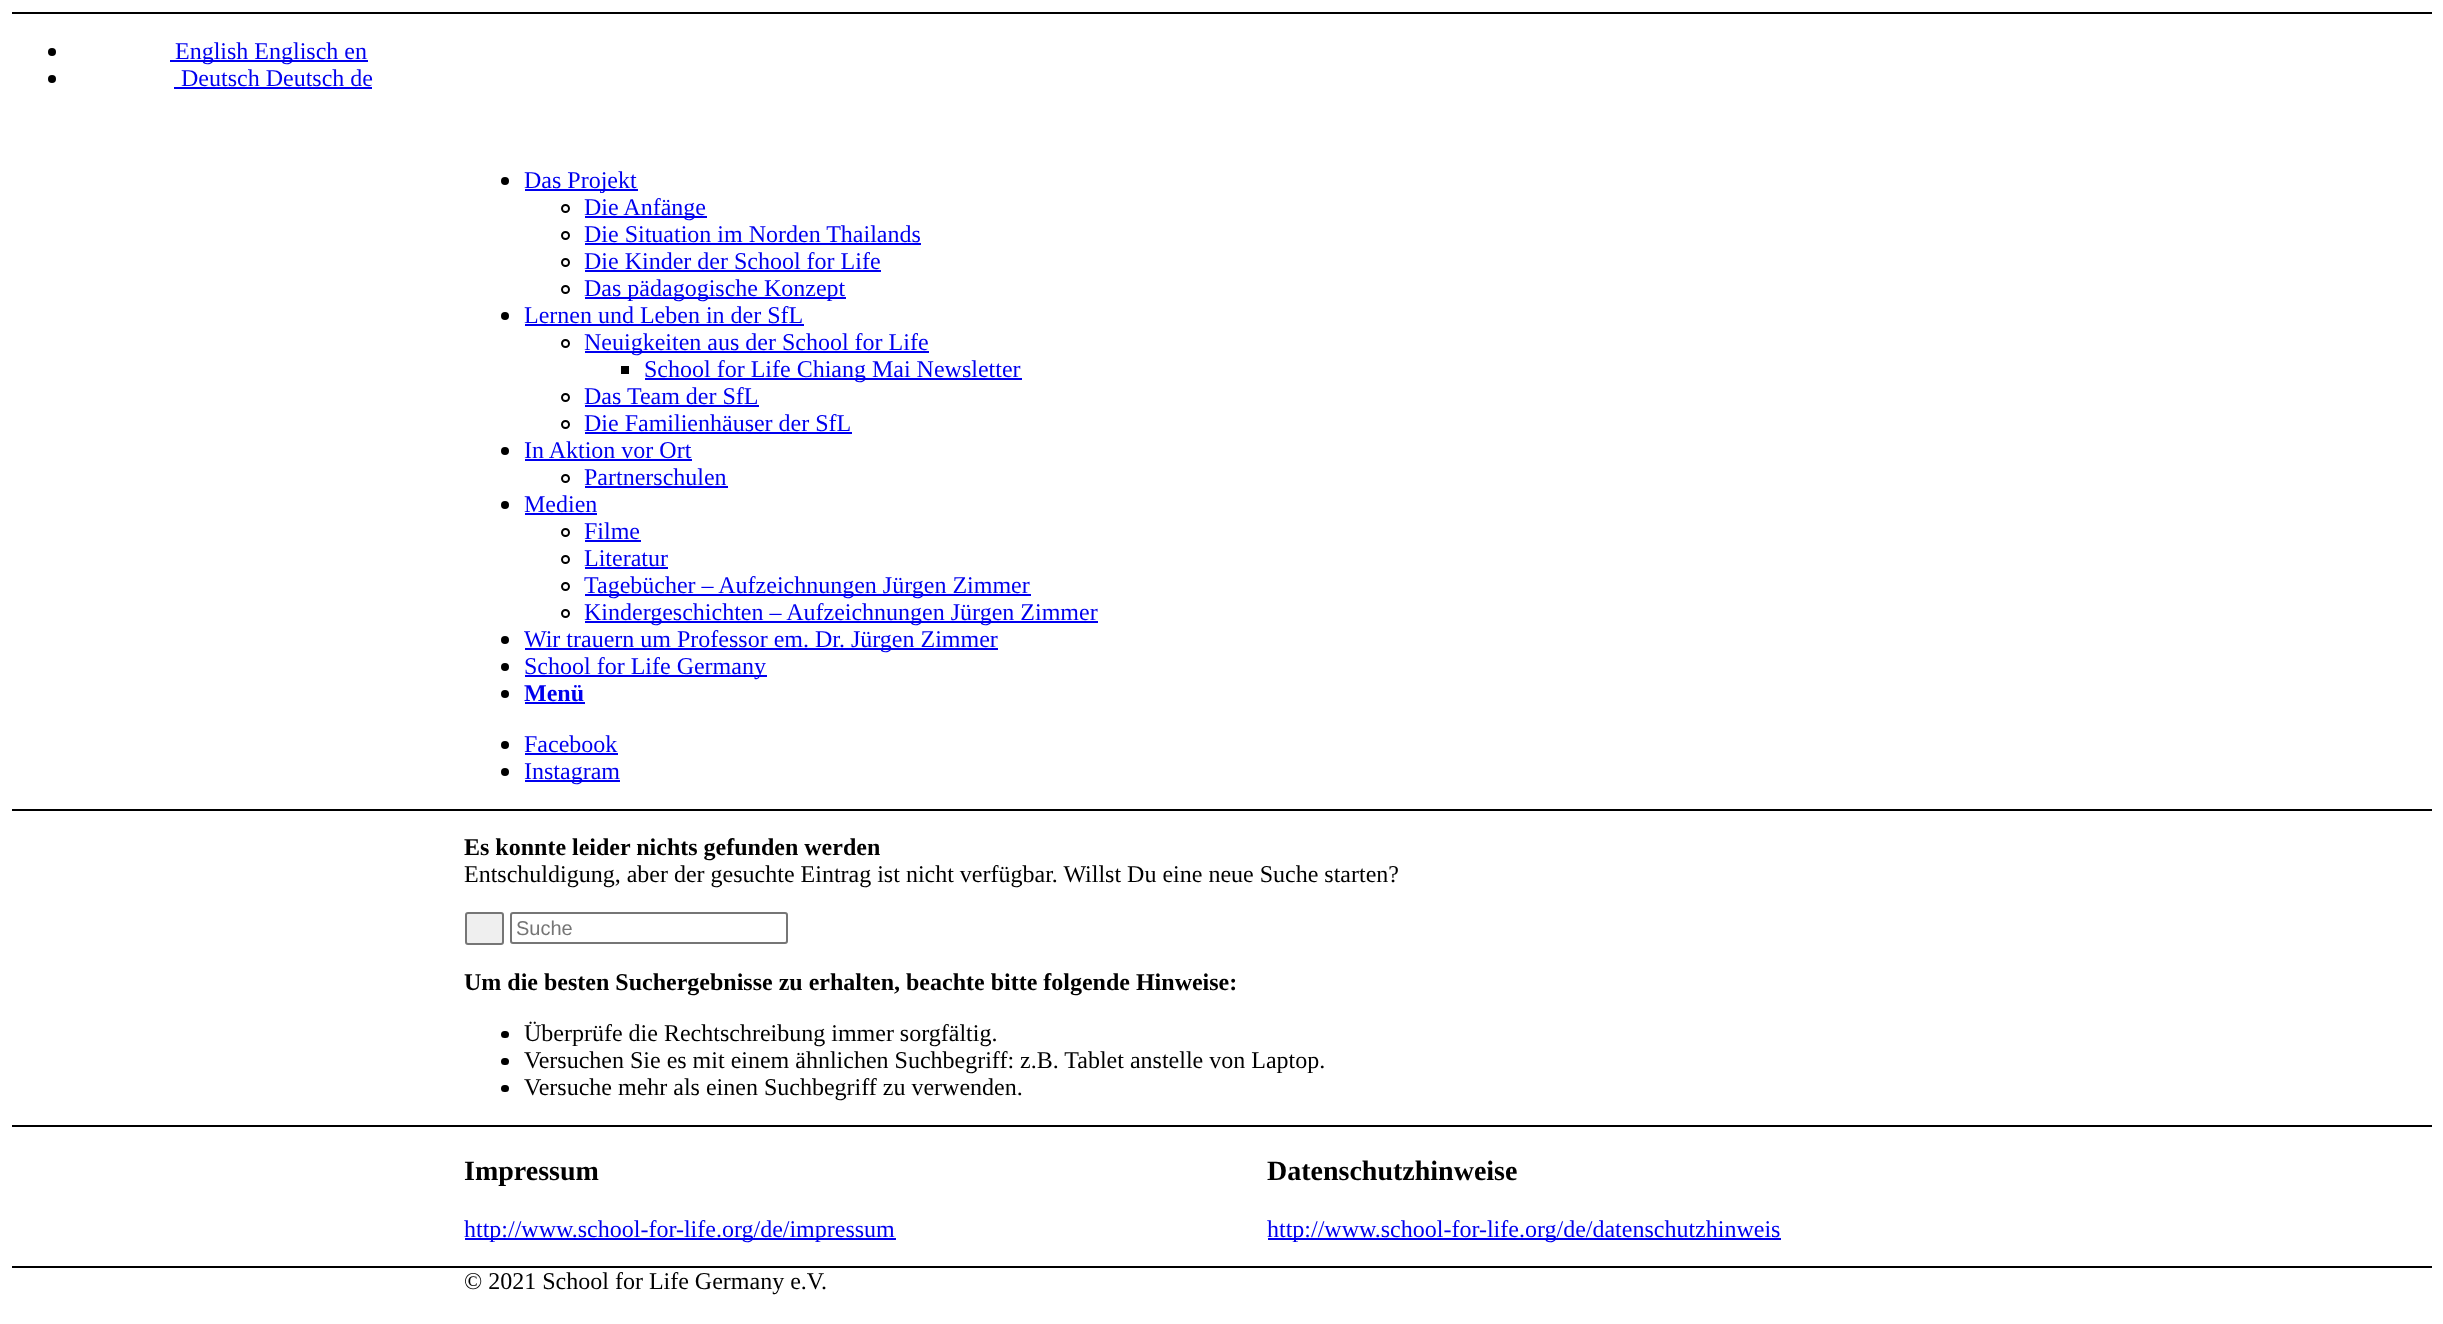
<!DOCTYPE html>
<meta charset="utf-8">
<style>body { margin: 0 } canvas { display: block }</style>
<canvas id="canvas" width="2443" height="1324"></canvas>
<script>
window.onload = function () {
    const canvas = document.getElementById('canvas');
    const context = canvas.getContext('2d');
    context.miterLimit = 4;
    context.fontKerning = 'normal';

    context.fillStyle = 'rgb(255, 255, 255)';
    context.fillRect(0, 0, 2443, 1324);
    context.fillStyle = 'rgb(0, 0, 0)';
    context.fillRect(12, 12, 2420, 2);
    context.beginPath();
    context.arc(52, 52, 4, 0, 2 * Math.PI);
    context.fill();
    context.fillStyle = 'rgb(0, 0, 238)';
    context.fillRect(170, 60, 198, 2);
    context.fillStyle = 'rgb(0, 0, 0)';
    context.beginPath();
    context.arc(52, 79, 4, 0, 2 * Math.PI);
    context.fill();
    context.fillStyle = 'rgb(0, 0, 238)';
    context.fillRect(174, 87, 198, 2);
    context.fillStyle = 'rgb(0, 0, 0)';
    context.beginPath();
    context.arc(505, 181, 4, 0, 2 * Math.PI);
    context.fill();
    context.fillStyle = 'rgb(0, 0, 238)';
    context.fillRect(525, 189, 113, 2);
    context.beginPath();
    context.arc(565.5, 208.5, 3.5, 0, 2 * Math.PI);
    context.strokeStyle = 'rgb(0, 0, 0)';
    context.lineWidth = 2;
    context.stroke();
    context.fillRect(585, 216, 122, 2);
    context.beginPath();
    context.arc(565.5, 235.5, 3.5, 0, 2 * Math.PI);
    context.stroke();
    context.fillRect(585, 243, 336, 2);
    context.beginPath();
    context.arc(565.5, 262.5, 3.5, 0, 2 * Math.PI);
    context.stroke();
    context.fillRect(585, 270, 296, 2);
    context.beginPath();
    context.arc(565.5, 289.5, 3.5, 0, 2 * Math.PI);
    context.stroke();
    context.fillRect(585, 297, 261, 2);
    context.fillStyle = 'rgb(0, 0, 0)';
    context.beginPath();
    context.arc(505, 316, 4, 0, 2 * Math.PI);
    context.fill();
    context.fillStyle = 'rgb(0, 0, 238)';
    context.fillRect(525, 324, 279, 2);
    context.beginPath();
    context.arc(565.5, 343.5, 3.5, 0, 2 * Math.PI);
    context.stroke();
    context.fillRect(585, 351, 344, 2);
    context.fillStyle = 'rgb(0, 0, 0)';
    context.fillRect(621, 366, 8, 8);
    context.fillStyle = 'rgb(0, 0, 238)';
    context.fillRect(645, 378, 377, 2);
    context.beginPath();
    context.arc(565.5, 397.5, 3.5, 0, 2 * Math.PI);
    context.stroke();
    context.fillRect(585, 405, 174, 2);
    context.beginPath();
    context.arc(565.5, 424.5, 3.5, 0, 2 * Math.PI);
    context.stroke();
    context.fillRect(585, 432, 267, 2);
    context.fillStyle = 'rgb(0, 0, 0)';
    context.beginPath();
    context.arc(505, 451, 4, 0, 2 * Math.PI);
    context.fill();
    context.fillStyle = 'rgb(0, 0, 238)';
    context.fillRect(525, 459, 167, 2);
    context.beginPath();
    context.arc(565.5, 478.5, 3.5, 0, 2 * Math.PI);
    context.stroke();
    context.fillRect(585, 486, 143, 2);
    context.fillStyle = 'rgb(0, 0, 0)';
    context.beginPath();
    context.arc(505, 505, 4, 0, 2 * Math.PI);
    context.fill();
    context.fillStyle = 'rgb(0, 0, 238)';
    context.fillRect(525, 513, 72, 2);
    context.beginPath();
    context.arc(565.5, 532.5, 3.5, 0, 2 * Math.PI);
    context.stroke();
    context.fillRect(585, 540, 56, 2);
    context.beginPath();
    context.arc(565.5, 559.5, 3.5, 0, 2 * Math.PI);
    context.stroke();
    context.fillRect(585, 567, 83, 2);
    context.beginPath();
    context.arc(565.5, 586.5, 3.5, 0, 2 * Math.PI);
    context.stroke();
    context.fillRect(585, 594, 446, 2);
    context.beginPath();
    context.arc(565.5, 613.5, 3.5, 0, 2 * Math.PI);
    context.stroke();
    context.fillRect(585, 621, 513, 2);
    context.fillStyle = 'rgb(0, 0, 0)';
    context.beginPath();
    context.arc(505, 640, 4, 0, 2 * Math.PI);
    context.fill();
    context.fillStyle = 'rgb(0, 0, 238)';
    context.fillRect(525, 648, 473, 2);
    context.fillStyle = 'rgb(0, 0, 0)';
    context.beginPath();
    context.arc(505, 667, 4, 0, 2 * Math.PI);
    context.fill();
    context.fillStyle = 'rgb(0, 0, 238)';
    context.fillRect(525, 675, 242, 2);
    context.fillStyle = 'rgb(0, 0, 0)';
    context.beginPath();
    context.arc(505, 694, 4, 0, 2 * Math.PI);
    context.fill();
    context.fillStyle = 'rgb(0, 0, 238)';
    context.fillRect(525, 702, 60, 2);
    context.fillStyle = 'rgb(0, 0, 0)';
    context.beginPath();
    context.arc(505, 745, 4, 0, 2 * Math.PI);
    context.fill();
    context.fillStyle = 'rgb(0, 0, 238)';
    context.fillRect(525, 753, 93, 2);
    context.fillStyle = 'rgb(0, 0, 0)';
    context.beginPath();
    context.arc(505, 772, 4, 0, 2 * Math.PI);
    context.fill();
    context.fillStyle = 'rgb(0, 0, 238)';
    context.fillRect(525, 780, 95, 2);
    context.fillStyle = 'rgb(0, 0, 0)';
    context.fillRect(12, 809, 2420, 2);
    context.fillStyle = 'rgb(239, 239, 239)';
    context.beginPath();
    context.roundRect(466, 913, 37, 31, 2);
    context.fill();
    context.strokeStyle = 'rgb(118, 118, 118)';
    context.stroke();
    context.beginPath();
    context.roundRect(511, 913, 276, 30, 2);
    context.stroke();
    context.fillStyle = 'rgb(0, 0, 0)';
    context.beginPath();
    context.roundRect(501, 1031, 8, 7, 3.5);
    context.fill();
    context.beginPath();
    context.roundRect(501, 1058, 8, 7, 3.5);
    context.fill();
    context.beginPath();
    context.roundRect(501, 1085, 8, 7, 3.5);
    context.fill();
    context.fillRect(12, 1125, 2420, 2);
    context.fillStyle = 'rgb(0, 0, 238)';
    context.fillRect(465, 1238, 431, 2);
    context.fillRect(1268, 1238, 513, 2);
    context.fillStyle = 'rgb(0, 0, 0)';
    context.fillRect(12, 1266, 2420, 2);
    context.font = '24px Liberation Serif';
    context.fillStyle = 'rgb(0, 0, 238)';
    context.fillText('English Englisch en', 175, 59);
    context.fillText('Deutsch Deutsch de', 181, 86);
    context.fillText('Das Projekt', 524, 188);
    context.fillText('Die Anfänge', 584, 215);
    context.fillText('Die Situation im Norden Thailands', 584, 242);
    context.fillText('Die Kinder der School for Life', 584, 269);
    context.fillText('Das pädagogische Konzept', 584, 296);
    context.fillText('Lernen und Leben in der SfL', 524, 323);
    context.fillText('Neuigkeiten aus der School for Life', 584, 350);
    context.fillText('School for Life Chiang Mai Newsletter', 644, 377);
    context.fillText('Das Team der SfL', 584, 404);
    context.fillText('Die Familienhäuser der SfL', 584, 431);
    context.fillText('In Aktion vor Ort', 524, 458);
    context.fillText('Partnerschulen', 584, 485);
    context.fillText('Medien', 524, 512);
    context.fillText('Filme', 584, 539);
    context.fillText('Literatur', 584, 566);
    context.fillText('Tagebücher – Aufzeichnungen Jürgen Zimmer', 584, 593);
    context.fillText('Kindergeschichten – Aufzeichnungen Jürgen Zimmer', 584, 620);
    context.fillText('Wir trauern um Professor em. Dr. Jürgen Zimmer', 524, 647);
    context.fillText('School for Life Germany', 524, 674);
    context.font = 'bold 24px Liberation Serif';
    context.fillText('Menü', 524, 701);
    context.font = '24px Liberation Serif';
    context.fillText('Facebook', 524, 752);
    context.fillText('Instagram', 524, 779);
    context.font = 'bold 24px Liberation Serif';
    context.fillStyle = 'rgb(0, 0, 0)';
    context.fillText('Es konnte leider nichts gefunden werden', 464, 855);
    context.font = '24px Liberation Serif';
    context.fillText('Entschuldigung, aber der gesuchte Eintrag ist nicht verfügbar. Willst Du eine neue Suche starten?', 464, 882);
    context.font = '20px Liberation Sans';
    context.fillStyle = 'rgb(117, 117, 117)';
    context.fillText('Suche', 516, 935);
    context.font = 'bold 24px Liberation Serif';
    context.fillStyle = 'rgb(0, 0, 0)';
    context.fillText('Um die besten Suchergebnisse zu erhalten, beachte bitte folgende Hinweise:', 464, 990);
    context.font = '24px Liberation Serif';
    context.fillText('Überprüfe die Rechtschreibung immer sorgfältig.', 524, 1041);
    context.fillText('Versuchen Sie es mit einem ähnlichen Suchbegriff: z.B. Tablet anstelle von Laptop.', 524, 1068);
    context.fillText('Versuche mehr als einen Suchbegriff zu verwenden.', 524, 1095);
    context.font = 'bold 28px Liberation Serif';
    context.fillText('Impressum', 464, 1180);
    context.font = '24px Liberation Serif';
    context.fillStyle = 'rgb(0, 0, 238)';
    context.fillText('http://www.school-for-life.org/de/impressum', 464, 1237);
    context.font = 'bold 28px Liberation Serif';
    context.fillStyle = 'rgb(0, 0, 0)';
    context.fillText('Datenschutzhinweise', 1267, 1180);
    context.font = '24px Liberation Serif';
    context.fillStyle = 'rgb(0, 0, 238)';
    context.fillText('http://www.school-for-life.org/de/datenschutzhinweis', 1267, 1237);
    context.fillStyle = 'rgb(0, 0, 0)';
    context.fillText('© 2021 School for Life Germany e.V.', 464, 1289);
};
</script>
